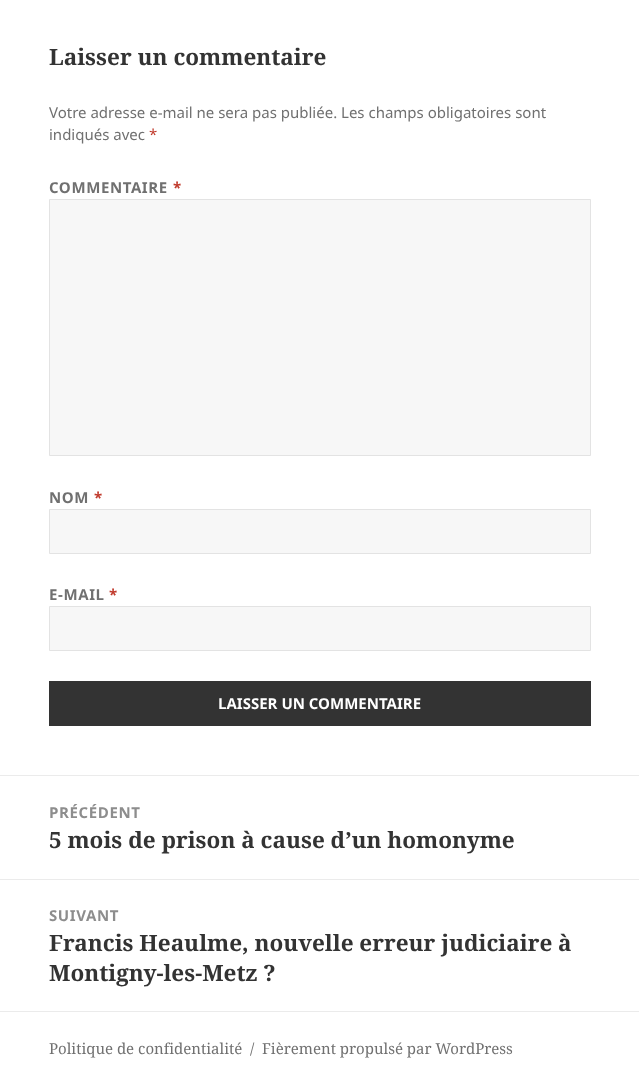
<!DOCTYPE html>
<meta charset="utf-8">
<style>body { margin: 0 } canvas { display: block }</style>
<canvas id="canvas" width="639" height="1084"></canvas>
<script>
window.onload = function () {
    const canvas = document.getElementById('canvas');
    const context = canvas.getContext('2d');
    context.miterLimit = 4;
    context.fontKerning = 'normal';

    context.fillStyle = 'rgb(255, 255, 255)';
    context.fillRect(0, 0, 639, 1084);
    context.fillStyle = 'rgb(247, 247, 247)';
    context.beginPath();
    context.rect(49.5, 199.5, 541, 256);
    context.fill();
    context.strokeStyle = 'rgb(227, 227, 227)';
    context.stroke();
    context.beginPath();
    context.rect(49.5, 509.5, 541, 44);
    context.fill();
    context.stroke();
    context.beginPath();
    context.rect(49.5, 606.5, 541, 44);
    context.fill();
    context.stroke();
    context.fillStyle = 'rgb(51, 51, 51)';
    context.fillRect(49, 681, 542, 45);
    context.fillStyle = 'rgb(235, 235, 235)';
    context.fillRect(0, 775, 639, 1);
    context.fillRect(0, 879, 639, 1);
    context.fillRect(0, 1011, 639, 1);
    context.font = 'bold 22.5px Noto Serif';
    context.fillStyle = 'rgb(51, 51, 51)';
    context.fillText('Laisser un commentaire', 49, 65);
    context.font = '15px Noto Sans';
    context.fillStyle = 'rgb(112, 112, 112)';
    context.fillText('Votre adresse e-mail ne sera pas publiée. Les champs obligatoires sont', 49, 118);
    context.fillText('indiqués avec', 49, 140);
    context.fillStyle = 'rgb(192, 57, 43)';
    context.fillText('*', 149, 140);
    context.letterSpacing = '0.6px';
    context.font = 'bold 15px Noto Sans';
    context.fillStyle = 'rgb(112, 112, 112)';
    context.fillText('COMMENTAIRE', 49, 193);
    context.fillStyle = 'rgb(192, 57, 43)';
    context.fillText('*', 173, 193);
    context.fillStyle = 'rgb(112, 112, 112)';
    context.fillText('NOM', 49, 503);
    context.fillStyle = 'rgb(192, 57, 43)';
    context.fillText('*', 94, 503);
    context.fillStyle = 'rgb(112, 112, 112)';
    context.fillText('E-MAIL', 49, 600);
    context.fillStyle = 'rgb(192, 57, 43)';
    context.fillText('*', 109, 600);
    context.letterSpacing = '0px';
    context.fillStyle = 'rgb(255, 255, 255)';
    context.fillText('LAISSER UN COMMENTAIRE', 218, 709);
    context.letterSpacing = '0.6px';
    context.fillStyle = 'rgb(141, 141, 141)';
    context.fillText('PRÉCÉDENT', 49, 818);
    context.letterSpacing = '0px';
    context.font = 'bold 22.5px Noto Serif';
    context.fillStyle = 'rgb(51, 51, 51)';
    context.fillText('5 mois de prison à cause d’un homonyme', 49, 848);
    context.letterSpacing = '0.6px';
    context.font = 'bold 15px Noto Sans';
    context.fillStyle = 'rgb(141, 141, 141)';
    context.fillText('SUIVANT', 49, 921);
    context.letterSpacing = '0px';
    context.font = 'bold 22.5px Noto Serif';
    context.fillStyle = 'rgb(51, 51, 51)';
    context.fillText('Francis Heaulme, nouvelle erreur judiciaire à', 49, 951);
    context.fillText('Montigny-les-Metz ?', 49, 981);
    context.font = '15px Noto Serif';
    context.fillStyle = 'rgb(112, 112, 112)';
    context.fillText('Politique de confidentialité', 49, 1054);
    context.fillText('/', 250, 1054);
    context.fillText('Fièrement propulsé par WordPress', 262, 1054);
};
</script>
